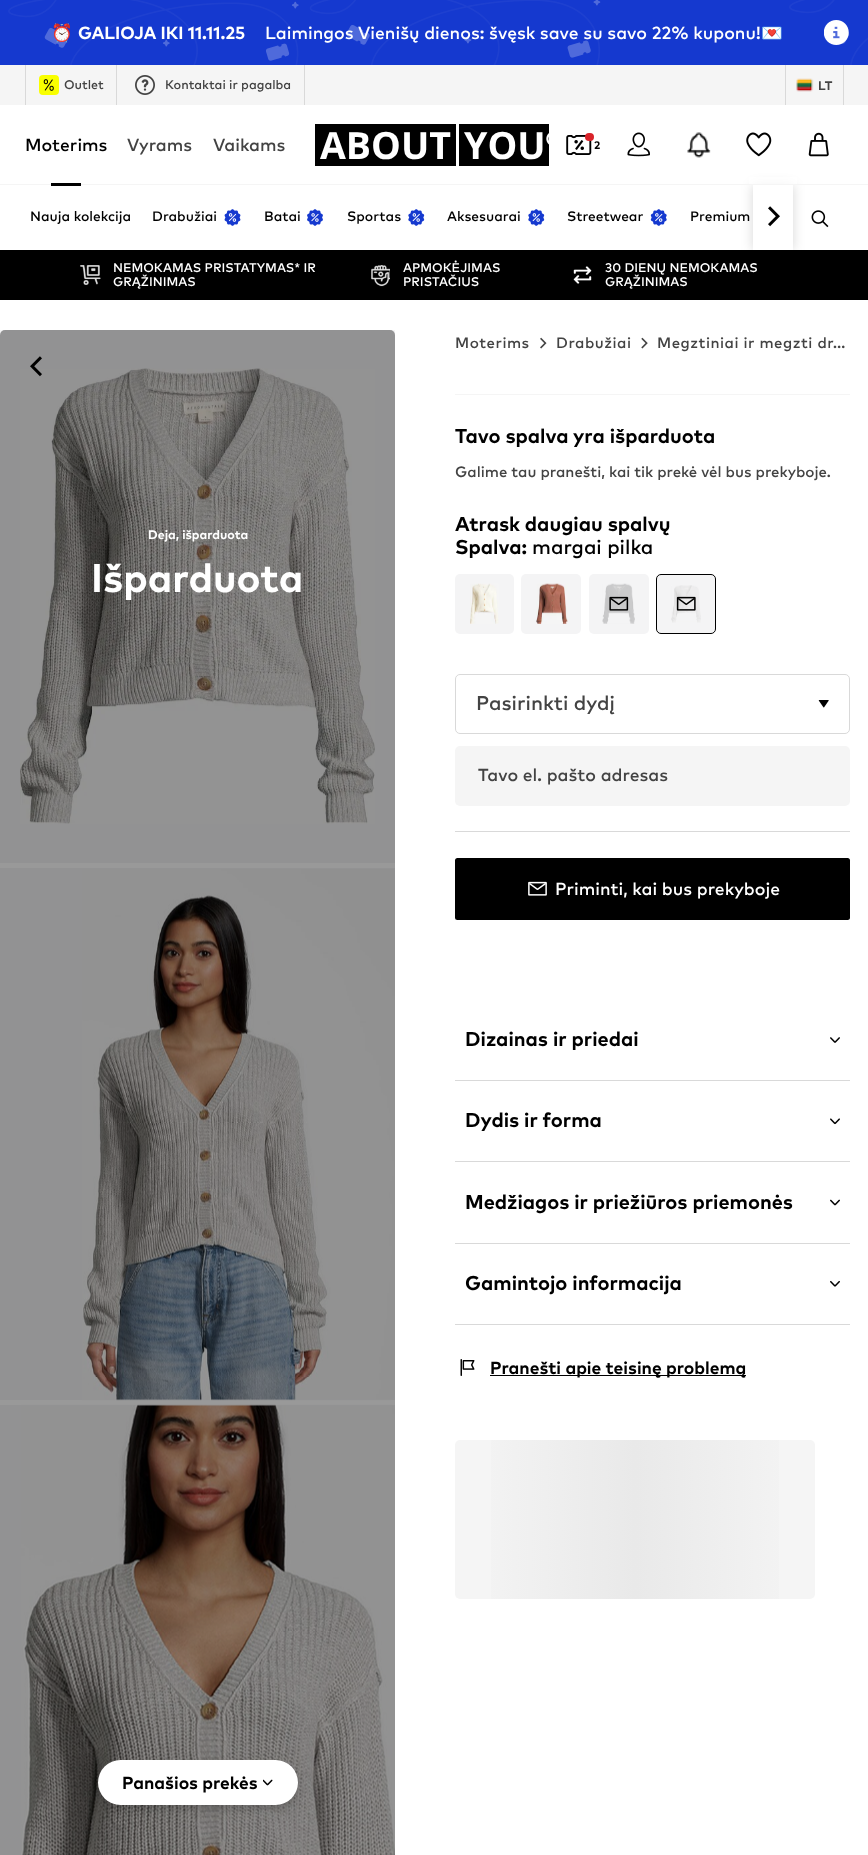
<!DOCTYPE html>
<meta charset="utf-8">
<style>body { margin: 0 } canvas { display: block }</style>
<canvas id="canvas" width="868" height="1855"></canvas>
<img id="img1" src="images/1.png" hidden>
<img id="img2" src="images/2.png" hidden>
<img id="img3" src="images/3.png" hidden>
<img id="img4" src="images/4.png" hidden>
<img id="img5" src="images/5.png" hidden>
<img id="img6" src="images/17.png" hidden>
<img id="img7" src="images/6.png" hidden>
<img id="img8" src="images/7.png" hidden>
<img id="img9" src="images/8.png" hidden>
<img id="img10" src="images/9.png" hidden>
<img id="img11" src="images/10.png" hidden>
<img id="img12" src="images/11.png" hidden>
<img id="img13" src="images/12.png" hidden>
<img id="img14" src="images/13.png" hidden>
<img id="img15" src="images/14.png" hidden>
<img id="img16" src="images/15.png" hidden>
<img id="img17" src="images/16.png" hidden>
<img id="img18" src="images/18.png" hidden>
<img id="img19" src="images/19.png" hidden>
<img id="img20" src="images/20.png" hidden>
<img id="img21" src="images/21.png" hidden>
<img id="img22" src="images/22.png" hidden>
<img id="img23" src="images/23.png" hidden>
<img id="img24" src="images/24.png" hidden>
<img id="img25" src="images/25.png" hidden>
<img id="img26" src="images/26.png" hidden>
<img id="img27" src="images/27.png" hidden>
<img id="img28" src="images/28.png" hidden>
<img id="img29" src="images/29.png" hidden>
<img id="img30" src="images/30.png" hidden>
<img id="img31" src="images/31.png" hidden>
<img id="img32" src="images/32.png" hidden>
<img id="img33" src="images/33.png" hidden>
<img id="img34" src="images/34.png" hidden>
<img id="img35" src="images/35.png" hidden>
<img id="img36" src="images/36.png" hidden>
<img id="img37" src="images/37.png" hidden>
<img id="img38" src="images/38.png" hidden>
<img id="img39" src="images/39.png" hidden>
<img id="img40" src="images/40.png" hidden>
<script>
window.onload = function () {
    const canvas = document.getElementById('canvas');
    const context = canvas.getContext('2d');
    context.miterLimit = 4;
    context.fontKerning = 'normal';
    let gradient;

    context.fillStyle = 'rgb(255, 255, 255)';
    context.fillRect(0, 0, 868, 1855);
    context.fillStyle = 'rgb(21, 57, 207)';
    context.fillRect(0, 0, 868, 65);
    context.drawImage(document.getElementById('img1'), 8, 0, 860, 65);
    context.drawImage(document.getElementById('img2'), 824, 20, 25, 25);
    context.fillStyle = 'rgb(245, 245, 245)';
    context.fillRect(0, 65, 868, 40);
    context.fillStyle = 'rgb(217, 217, 217)';
    context.fillRect(304, 65, 1, 40);
    context.fillRect(25, 65, 1, 40);
    context.fillStyle = 'rgb(249, 255, 0)';
    context.beginPath();
    context.roundRect(39, 75, 20, 20, 4);
    context.fill();
    context.drawImage(document.getElementById('img3'), 43, 79, 11, 12);
    context.fillStyle = 'rgb(217, 217, 217)';
    context.fillRect(116, 65, 1, 40);
    context.drawImage(document.getElementById('img4'), 135, 75, 20, 20);
    context.fillRect(843, 65, 1, 40);
    context.fillRect(785, 65, 1, 40);
    context.drawImage(document.getElementById('img5'), 796, 78, 18, 14);
    context.drawImage(document.getElementById('img6'), 811, 210, 18, 18);
    context.fillStyle = 'rgb(0, 0, 0)';
    context.fillRect(0, 250, 868, 50);
    context.fillStyle = 'rgba(0, 0, 0, 0.16)';
    context.filter = 'blur(6px)';
    context.beginPath();
    context.rect(753, 185, 40, 65);
    context.fill();
    context.filter = 'none';
    context.fillStyle = 'rgba(255, 255, 255, 0.7)';
    context.fillRect(749, 177, 48, 7);
    context.fillStyle = 'rgb(245, 245, 245)';
    context.fillRect(0, 184, 868, 1);
    context.fillStyle = 'rgb(0, 0, 0)';
    context.fillRect(51, 183, 30, 3);
    context.fillRect(315, 124, 141, 42);
    context.fillRect(459, 124, 90, 42);
    context.drawImage(document.getElementById('img7'), 546, 133, 3, 12);
    context.drawImage(document.getElementById('img8'), 566, 135, 26, 20);
    context.fillStyle = 'rgb(217, 35, 42)';
    context.beginPath();
    context.roundRect(585, 133, 9, 8, 4);
    context.fill();
    context.drawImage(document.getElementById('img9'), 627, 132, 23, 25);
    context.drawImage(document.getElementById('img10'), 687, 132, 24, 26);
    context.drawImage(document.getElementById('img11'), 746, 132, 26, 25);
    context.drawImage(document.getElementById('img12'), 808, 132, 21, 25);
    context.drawImage(document.getElementById('img13'), 224, 209, 17, 17);
    context.drawImage(document.getElementById('img14'), 307, 209, 16, 17);
    context.drawImage(document.getElementById('img15'), 408, 209, 17, 17);
    context.drawImage(document.getElementById('img15'), 528, 209, 17, 17);
    context.drawImage(document.getElementById('img16'), 650, 209, 17, 17);
    context.fillStyle = 'rgb(255, 255, 255)';
    context.fillRect(753, 185, 40, 65);
    context.drawImage(document.getElementById('img17'), 768, 206, 12, 21);
    context.drawImage(document.getElementById('img18'), 80, 265, 21, 20);
    context.drawImage(document.getElementById('img19'), 371, 265, 19, 22);
    context.drawImage(document.getElementById('img20'), 573, 266, 19, 18);
    context.fillStyle = 'rgb(244, 244, 245)';
    context.fillRect(0, 330, 395, 533);
    context.drawImage(document.getElementById('img21'), 20, 368, 355, 456);
    context.fillRect(0, 868, 395, 532);
    context.drawImage(document.getElementById('img22'), 82, 869, 313, 532);
    context.fillRect(0, 1405, 395, 450);
    context.drawImage(document.getElementById('img23'), 21, 1404, 374, 451);
    context.drawImage(document.getElementById('img24'), 30, 356, 12, 21);
    context.fillStyle = 'rgba(0, 0, 0, 0.4)';
    context.beginPath();
    context.roundRect(0, 330, 395, 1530, 5);
    context.fill();
    context.fillStyle = 'rgba(0, 0, 0, 0.07)';
    context.filter = 'blur(7.5px)';
    context.beginPath();
    context.roundRect(95, 1761, 205, 50, 25);
    context.fill();
    context.filter = 'none';
    context.fillStyle = 'rgba(0, 0, 0, 0.1)';
    context.filter = 'blur(2.5px)';
    context.beginPath();
    context.roundRect(98, 1765, 200, 45, 22.5);
    context.fill();
    context.filter = 'none';
    context.fillStyle = 'rgb(255, 255, 255)';
    context.beginPath();
    context.roundRect(98, 1760, 200, 45, 22.5);
    context.fill();
    context.drawImage(document.getElementById('img25'), 263, 1779, 10, 7);
    context.drawImage(document.getElementById('img26'), 540, 337, 7, 12);
    context.drawImage(document.getElementById('img27'), 641, 337, 7, 12);
    context.fillStyle = 'rgb(245, 245, 245)';
    context.fillRect(455, 394, 395, 1);
    context.fillStyle = 'rgb(244, 244, 245)';
    context.beginPath();
    context.roundRect(455, 574, 59, 60, 5);
    context.fill();
    context.drawImage(document.getElementById('img28'), 470, 583, 29, 41);
    context.beginPath();
    context.roundRect(521, 574, 60, 60, 5);
    context.fill();
    context.drawImage(document.getElementById('img29'), 536, 583, 32, 41);
    context.beginPath();
    context.roundRect(589, 574, 60, 60, 5);
    context.fill();
    context.drawImage(document.getElementById('img30'), 602, 583, 33, 41);
    context.drawImage(document.getElementById('img31'), 609, 596, 20, 15);
    context.beginPath();
    context.roundRect(656.5, 574.5, 59, 59, 4.5);
    context.fill();
    context.strokeStyle = 'rgb(0, 0, 0)';
    context.stroke();
    context.drawImage(document.getElementById('img32'), 671, 585, 30, 38);
    context.drawImage(document.getElementById('img33'), 676, 596, 20, 15);
    context.beginPath();
    context.roundRect(455.5, 674.5, 394, 59, 4.5);
    context.strokeStyle = 'rgb(217, 217, 217)';
    context.stroke();
    context.drawImage(document.getElementById('img34'), 818, 700, 11, 8);
    context.fillStyle = 'rgb(245, 245, 245)';
    context.beginPath();
    context.roundRect(455, 746, 395, 60, 5);
    context.fill();
    context.fillStyle = 'rgb(217, 217, 217)';
    context.fillRect(455, 831, 395, 1);
    context.fillStyle = 'rgb(0, 0, 0)';
    context.beginPath();
    context.roundRect(455, 858, 395, 62, 2.5);
    context.fill();
    context.drawImage(document.getElementById('img35'), 528, 881, 19, 15);
    context.fillStyle = 'rgb(217, 217, 217)';
    context.fillRect(455, 1080, 395, 1);
    context.drawImage(document.getElementById('img36'), 830, 1037, 10, 6);
    context.fillRect(455, 1161, 395, 1);
    context.drawImage(document.getElementById('img37'), 830, 1118, 10, 7);
    context.fillRect(455, 1243, 395, 1);
    context.drawImage(document.getElementById('img38'), 830, 1199, 10, 7);
    context.fillRect(455, 1324, 395, 1);
    context.drawImage(document.getElementById('img39'), 830, 1280, 10, 7);
    context.drawImage(document.getElementById('img40'), 460, 1359, 15, 17);
    context.fillStyle = 'rgb(0, 0, 0)';
    context.fillRect(490, 1375, 256, 1);
    context.fillStyle = 'rgb(245, 245, 245)';
    context.beginPath();
    context.roundRect(455, 1440, 360, 159, 5);
    context.fill();
    gradient = context.createLinearGradient(455, 1519, 815, 1519);
    gradient.addColorStop(0, 'rgba(233, 233, 233, 0)');
    gradient.addColorStop(0.5, 'rgb(233, 233, 233)');
    gradient.addColorStop(1, 'rgba(233, 233, 233, 0)');
    context.fillStyle = gradient;
    context.fillRect(491, 1440, 288, 159);
    context.font = 'bold 17.5px Noto Color Emoji';
    context.fillStyle = 'rgb(255, 255, 255)';
    context.fillText('⏰', 51, 39);
    context.font = 'bold 17.5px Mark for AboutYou';
    context.fillText('GALIOJA IKI 11.11.25', 78, 39);
    context.font = '500 17.5px Mark for AboutYou';
    context.fillText('Laimingos Vienišų dienos: švęsk save su savo 22% kuponu!', 265, 39);
    context.font = '17.5px Noto Color Emoji';
    context.fillText('💌', 761, 39);
    context.font = '500 12.5px Mark for AboutYou';
    context.fillStyle = 'rgb(67, 67, 67)';
    context.fillText('Outlet', 64, 89);
    context.fillText('Kontaktai ir pagalba', 165, 89);
    context.font = 'bold 12.5px Mark for AboutYou';
    context.fillText('LT', 818, 90);
    context.font = '500 17.5px Mark for AboutYou';
    context.fillStyle = 'rgb(0, 0, 0)';
    context.fillText('Moterims', 25, 151);
    context.fillStyle = 'rgb(67, 67, 67)';
    context.fillText('Vyrams', 127, 151);
    context.fillText('Vaikams', 213, 151);
    context.font = 'bold 37.5px Open Sans';
    context.fillStyle = 'rgb(255, 255, 255)';
    context.fillText('ABOUT', 320, 159);
    context.fillText('YOU', 464, 159);
    context.font = 'bold 11px Mark for AboutYou';
    context.fillStyle = 'rgb(0, 0, 0)';
    context.fillText('2', 594, 149);
    context.font = '500 13.75px Mark for AboutYou';
    context.fillText('Nauja kolekcija', 30, 221);
    context.fillText('Drabužiai', 152, 221);
    context.fillText('Batai', 264, 221);
    context.fillText('Sportas', 347, 221);
    context.fillText('Aksesuarai', 447, 221);
    context.fillText('Streetwear', 567, 221);
    context.fillText('Premium', 690, 221);
    context.font = '500 12.5px Mark for AboutYou';
    context.fillStyle = 'rgb(255, 255, 255)';
    context.fillText('NEMOKAMAS PRISTATYMAS* IR', 113, 272);
    context.fillText('GRĄŽINIMAS', 113, 286);
    context.fillText('APMOKĖJIMAS', 403, 272);
    context.fillText('PRISTAČIUS', 403, 286);
    context.fillText('30 DIENŲ NEMOKAMAS', 605, 272);
    context.fillText('GRĄŽINIMAS', 605, 286);
    context.font = 'bold 12.5px Mark for AboutYou';
    context.fillText('Deja, išparduota', 148, 539);
    context.font = 'bold 40px Mark for AboutYou';
    context.fillText('Išparduota', 91, 592);
    context.font = 'bold 17.5px Mark for AboutYou';
    context.fillStyle = 'rgb(0, 0, 0)';
    context.fillText('Panašios prekės', 122, 1789);
    context.letterSpacing = '0.5px';
    context.font = '500 15px Mark for AboutYou';
    context.fillStyle = 'rgb(67, 67, 67)';
    context.fillText('Moterims', 455, 348);
    context.fillText('Drabužiai', 556, 348);
    context.fillText('Megztiniai ir megzti dr…', 657, 348);
    context.letterSpacing = '0px';
    context.font = 'bold 20px Mark for AboutYou';
    context.fillStyle = 'rgb(0, 0, 0)';
    context.fillText('Tavo spalva yra išparduota', 455, 443);
    context.font = '500 15px Mark for AboutYou';
    context.fillStyle = 'rgb(67, 67, 67)';
    context.fillText('Galime tau pranešti, kai tik prekė vėl bus prekyboje.', 455, 477);
    context.font = 'bold 20px Mark for AboutYou';
    context.fillStyle = 'rgb(0, 0, 0)';
    context.fillText('Atrask daugiau spalvų', 455, 531);
    context.fillText('Spalva:', 455, 554);
    context.font = '500 20px Mark for AboutYou';
    context.fillText('margai pilka', 532, 554);
    context.fillStyle = 'rgb(67, 67, 67)';
    context.fillText('Pasirinkti dydį', 476, 710);
    context.font = '500 17.5px Mark for AboutYou';
    context.fillText('Tavo el. pašto adresas', 478, 781);
    context.fillStyle = 'rgb(255, 255, 255)';
    context.fillText('Priminti, kai bus prekyboje', 555, 895);
    context.font = 'bold 20px Mark for AboutYou';
    context.fillStyle = 'rgb(0, 0, 0)';
    context.fillText('Dizainas ir priedai', 465, 1046);
    context.fillText('Dydis ir forma', 465, 1127);
    context.fillText('Medžiagos ir priežiūros priemonės', 465, 1209);
    context.fillText('Gamintojo informacija', 465, 1290);
    context.font = 'bold 17.5px Mark for AboutYou';
    context.fillText('Pranešti apie teisinę problemą', 490, 1374);
};
</script>
